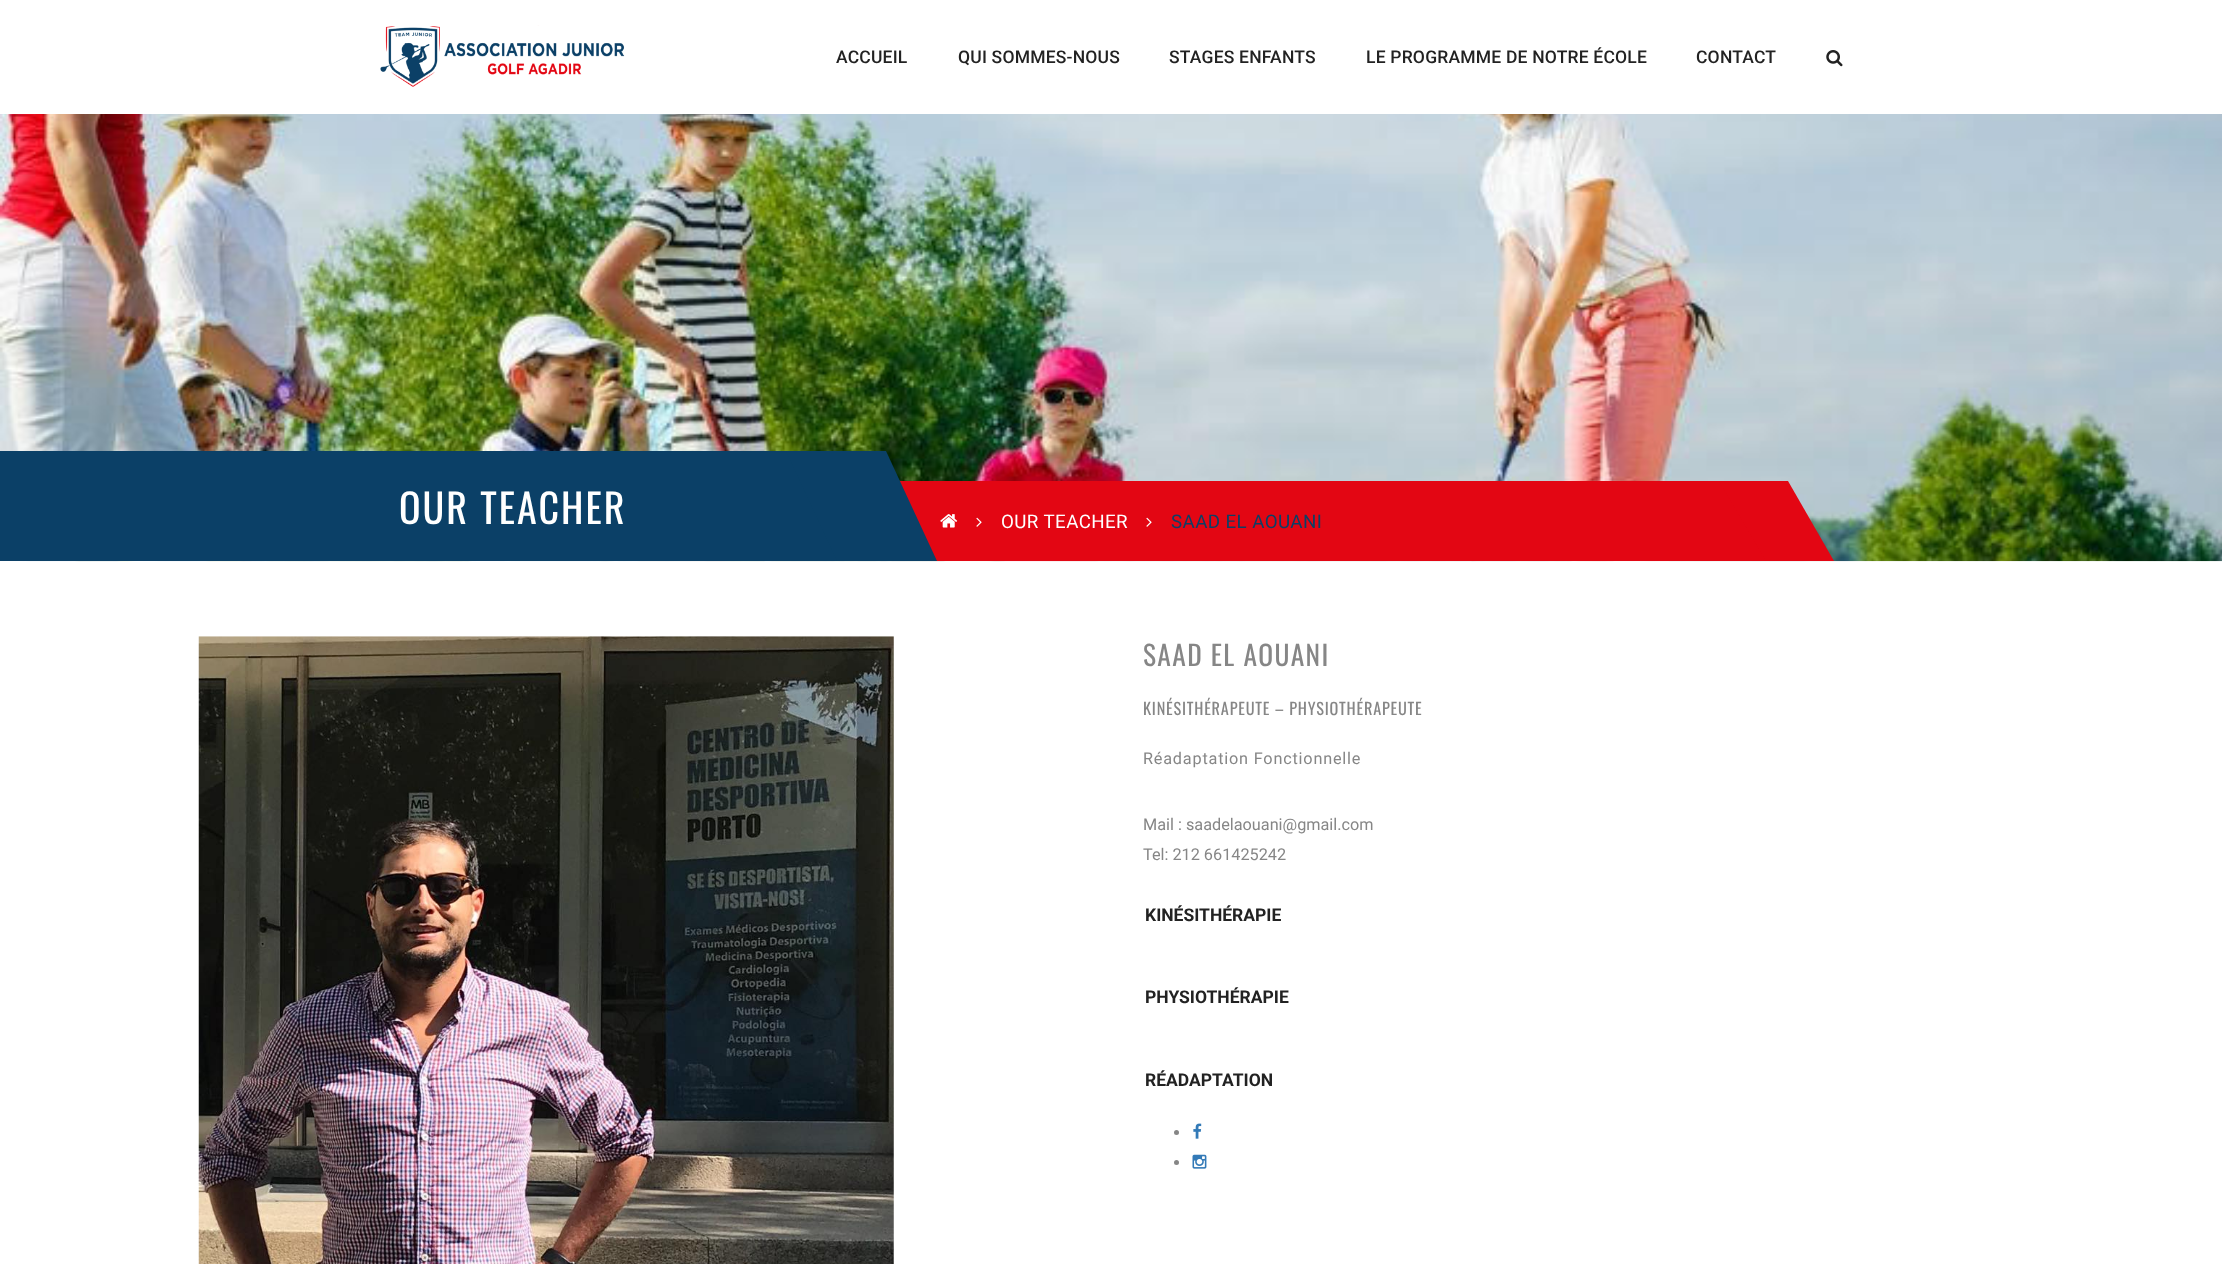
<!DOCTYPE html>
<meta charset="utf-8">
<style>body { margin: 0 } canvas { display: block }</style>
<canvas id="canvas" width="2222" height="1264"></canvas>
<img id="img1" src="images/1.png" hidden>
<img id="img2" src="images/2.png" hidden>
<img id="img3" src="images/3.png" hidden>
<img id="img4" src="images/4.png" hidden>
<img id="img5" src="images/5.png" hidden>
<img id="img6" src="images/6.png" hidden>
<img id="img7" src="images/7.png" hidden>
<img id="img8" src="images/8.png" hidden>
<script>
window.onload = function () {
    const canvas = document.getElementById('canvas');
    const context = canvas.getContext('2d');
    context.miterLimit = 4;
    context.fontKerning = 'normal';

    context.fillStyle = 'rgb(255, 255, 255)';
    context.fillRect(0, 0, 2222, 1264);
    context.drawImage(document.getElementById('img1'), 380, 25, 245, 62);
    context.drawImage(document.getElementById('img2'), 1826, 50, 17, 17);
    context.drawImage(document.getElementById('img3'), 0, 114, 2222, 448);
    context.fillStyle = 'rgb(11, 64, 103)';
    context.fillRect(0, 451, 837, 110);
    context.fillStyle = 'rgb(227, 6, 19)';
    context.fillRect(899, 481, 867, 80);
    context.fillStyle = 'rgb(11, 64, 103)';
    context.beginPath();
    context.moveTo(786, 451);
    context.lineTo(886, 451);
    context.lineTo(937, 561);
    context.lineTo(837, 561);
    context.closePath();
    context.fill();
    context.drawImage(document.getElementById('img4'), 940, 514, 18, 14);
    context.drawImage(document.getElementById('img5'), 976, 517, 6, 10);
    context.drawImage(document.getElementById('img5'), 1146, 517, 6, 10);
    context.fillStyle = 'rgb(227, 6, 19)';
    context.beginPath();
    context.moveTo(1719, 481);
    context.lineTo(1788, 481);
    context.lineTo(1834, 561);
    context.lineTo(1766, 561);
    context.closePath();
    context.fill();
    context.drawImage(document.getElementById('img6'), 198, 636, 696, 628);
    context.fillStyle = 'rgb(134, 134, 134)';
    context.beginPath();
    context.arc(1176.5, 1132.5, 2.5, 0, 2 * Math.PI);
    context.fill();
    context.drawImage(document.getElementById('img7'), 1193, 1123, 9, 16);
    context.beginPath();
    context.arc(1176.5, 1162.5, 2.5, 0, 2 * Math.PI);
    context.fill();
    context.drawImage(document.getElementById('img8'), 1192, 1154, 15, 15);
    context.letterSpacing = '0.2px';
    context.font = '500 17.5px Roboto';
    context.fillStyle = 'rgb(34, 34, 34)';
    context.fillText('ACCUEIL', 836, 63);
    context.fillText('QUI SOMMES-NOUS', 958, 63);
    context.fillText('STAGES ENFANTS', 1169, 63);
    context.fillText('LE PROGRAMME DE NOTRE ÉCOLE', 1366, 63);
    context.fillText('CONTACT', 1696, 63);
    context.letterSpacing = '2px';
    context.font = '40px Oswald';
    context.fillStyle = 'rgb(255, 255, 255)';
    context.fillText('OUR TEACHER', 399, 524);
    context.letterSpacing = '0.4px';
    context.font = '18.75px Roboto';
    context.fillText('OUR TEACHER', 1001, 528);
    context.fillStyle = 'rgb(11, 64, 103)';
    context.fillText('SAAD EL AOUANI', 1171, 528);
    context.letterSpacing = '1.4px';
    context.font = '27.5px Oswald';
    context.fillStyle = 'rgb(134, 134, 134)';
    context.fillText('SAAD EL AOUANI', 1143, 666);
    context.letterSpacing = '0.8px';
    context.font = '16.25px Oswald';
    context.fillText('KINÉSITHÉRAPEUTE – PHYSIOTHÉRAPEUTE', 1143, 715);
    context.font = '16.25px Roboto';
    context.fillText('Réadaptation Fonctionnelle', 1143, 764);
    context.letterSpacing = '0px';
    context.fillText('Mail : saadelaouani@gmail.com', 1143, 830);
    context.fillText('Tel: 212 661425242', 1143, 860);
    context.font = 'bold 17.5px Roboto';
    context.fillStyle = 'rgb(34, 34, 34)';
    context.fillText('KINÉSITHÉRAPIE', 1145, 921);
    context.fillText('PHYSIOTHÉRAPIE', 1145, 1003);
    context.fillText('RÉADAPTATION', 1145, 1086);
};
</script>
